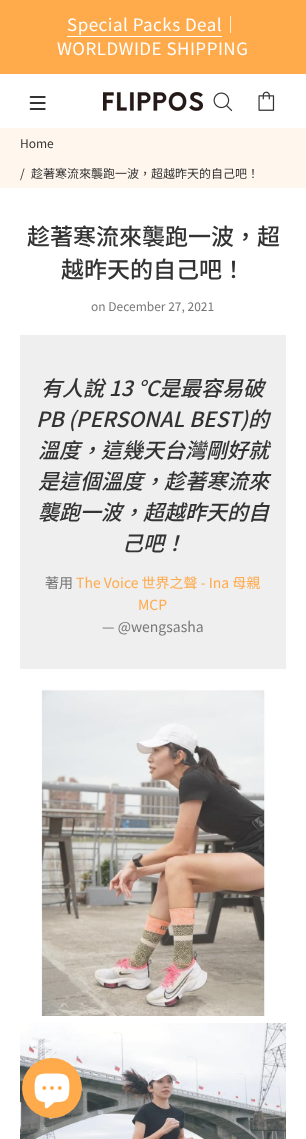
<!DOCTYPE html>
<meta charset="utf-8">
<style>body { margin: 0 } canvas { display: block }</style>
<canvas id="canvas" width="306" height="1139"></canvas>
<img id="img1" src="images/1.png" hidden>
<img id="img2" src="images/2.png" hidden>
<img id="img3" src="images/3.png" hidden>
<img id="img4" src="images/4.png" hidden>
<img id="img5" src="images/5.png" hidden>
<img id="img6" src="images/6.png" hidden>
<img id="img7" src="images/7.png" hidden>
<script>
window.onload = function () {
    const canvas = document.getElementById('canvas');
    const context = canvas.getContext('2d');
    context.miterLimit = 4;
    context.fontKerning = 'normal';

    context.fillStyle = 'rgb(255, 255, 255)';
    context.fillRect(0, 0, 306, 1139);
    context.fillStyle = 'rgb(255, 170, 75)';
    context.fillRect(0, 0, 306, 74);
    context.fillStyle = 'rgb(255, 255, 255)';
    context.fillRect(67, 36, 155, 1);
    context.drawImage(document.getElementById('img1'), 29, 96, 17, 14);
    context.drawImage(document.getElementById('img2'), 103, 92, 100, 19);
    context.drawImage(document.getElementById('img3'), 213, 92, 20, 20);
    context.drawImage(document.getElementById('img4'), 258, 91, 17, 20);
    context.fillStyle = 'rgb(255, 247, 237)';
    context.fillRect(0, 128, 306, 60);
    context.fillStyle = 'rgb(239, 239, 239)';
    context.fillRect(20, 335, 266, 334);
    context.drawImage(document.getElementById('img5'), 41, 689, 225, 327);
    context.drawImage(document.getElementById('img6'), 20, 1023, 266, 116);
    context.fillStyle = 'rgb(255, 170, 75)';
    context.beginPath();
    context.arc(52, 1088, 30, 0, 2 * Math.PI);
    context.fill();
    context.drawImage(document.getElementById('img7'), 34, 1073, 36, 36);
    context.letterSpacing = '0.5px';
    context.font = '17px Noto Sans TC';
    context.fillStyle = 'rgb(255, 255, 255)';
    context.fillText('Special Packs Deal｜', 67, 31);
    context.fillText('WORLDWIDE SHIPPING', 57, 55);
    context.letterSpacing = '0px';
    context.font = '12px Noto Sans TC';
    context.fillStyle = 'rgb(51, 51, 51)';
    context.fillText('Home', 20, 148);
    context.fillText('/', 20, 178);
    context.fillText('趁著寒流來襲跑一波，超越昨天的自己吧！', 31, 178);
    context.font = '500 23px Noto Sans TC';
    context.fillText('趁著寒流來襲跑一波，超', 27, 245);
    context.fillText('越昨天的自己吧！', 61, 278);
    context.font = '12px Noto Sans TC';
    context.fillStyle = 'rgb(119, 119, 119)';
    context.fillText('on December 27, 2021', 91, 311);
    context.font = 'italic 500 21px Noto Sans TC';
    context.fillStyle = 'rgb(51, 51, 51)';
    context.fillText('有人說 13 °C是最容易破', 41, 396);
    context.fillText('PB (PERSONAL BEST)的', 36, 427);
    context.fillText('溫度，這幾天台灣剛好就', 38, 458);
    context.fillText('是這個溫度，趁著寒流來', 38, 489);
    context.fillText('襲跑一波，超越昨天的自', 38, 520);
    context.fillText('己吧！', 122, 551);
    context.font = '14px Noto Sans TC';
    context.fillStyle = 'rgb(119, 119, 119)';
    context.fillText('著用', 45, 588);
    context.fillStyle = 'rgb(255, 170, 75)';
    context.fillText('The Voice 世界之聲 - Ina 母親', 76, 588);
    context.fillText('MCP', 138, 610);
    context.fillStyle = 'rgb(119, 119, 119)';
    context.fillText('— @wengsasha', 102, 632);
};
</script>
